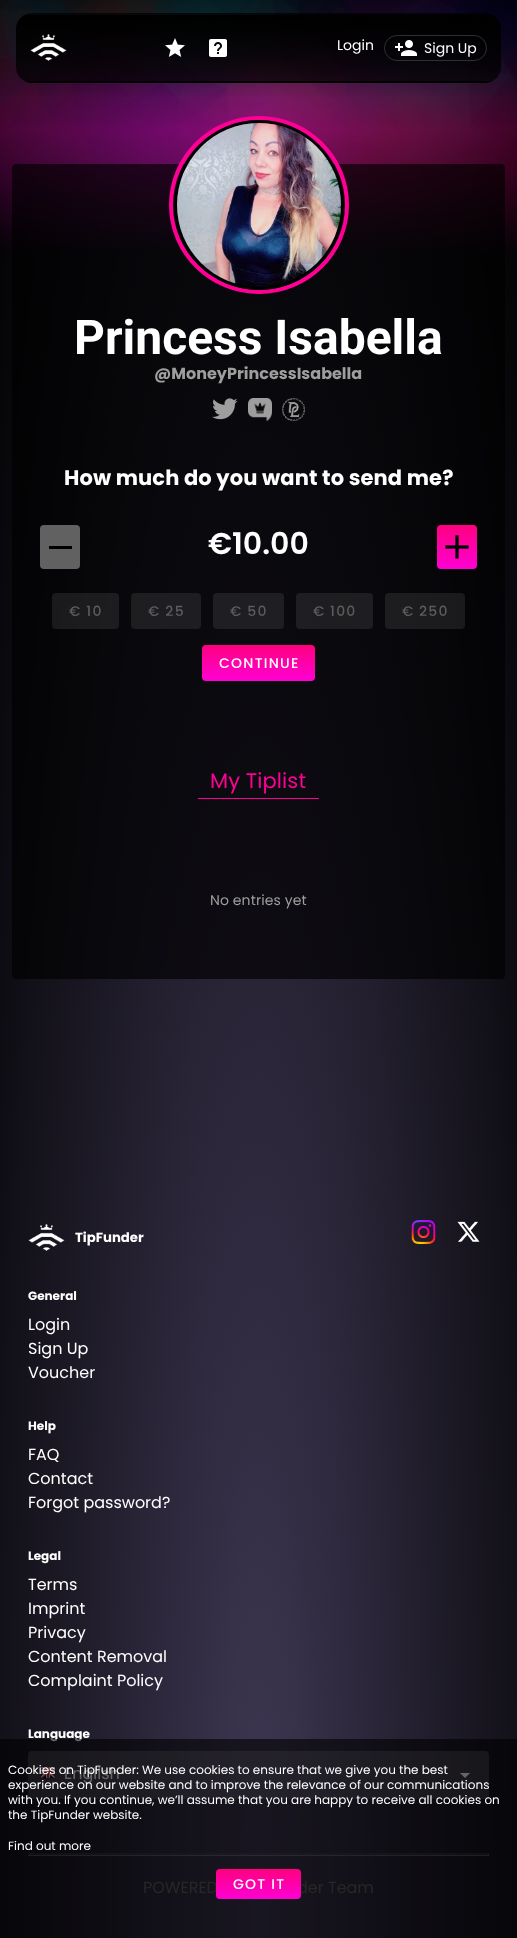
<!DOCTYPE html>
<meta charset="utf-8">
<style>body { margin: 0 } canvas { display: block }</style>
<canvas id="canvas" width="517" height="1938"></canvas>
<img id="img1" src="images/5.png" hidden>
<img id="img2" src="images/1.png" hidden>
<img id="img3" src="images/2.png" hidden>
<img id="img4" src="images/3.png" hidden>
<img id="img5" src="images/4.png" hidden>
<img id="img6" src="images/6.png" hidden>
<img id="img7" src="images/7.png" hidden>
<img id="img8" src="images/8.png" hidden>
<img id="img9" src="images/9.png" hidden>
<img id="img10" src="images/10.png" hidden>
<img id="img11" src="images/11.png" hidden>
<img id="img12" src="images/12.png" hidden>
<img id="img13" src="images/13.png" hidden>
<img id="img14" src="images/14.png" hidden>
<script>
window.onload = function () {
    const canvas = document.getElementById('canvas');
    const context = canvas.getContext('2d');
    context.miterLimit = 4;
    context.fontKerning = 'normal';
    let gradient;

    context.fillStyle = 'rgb(255, 255, 255)';
    context.fillRect(0, 0, 517, 1938);
    gradient = context.createRadialGradient(259, 258.78, 0, 259, 258.78, 366);
    gradient.addColorStop(0, 'rgb(63, 56, 84)');
    gradient.addColorStop(1, 'rgb(0, 0, 0)');
    context.fillStyle = gradient;
    context.beginPath();
    context.rect(0, 0, 517, 1938);
    context.save();
    context.clip();
    context.scale(1, 2741 / 366);
    context.fillRect(0, 0, 517, 259);
    context.restore();
    context.drawImage(document.getElementById('img1'), 0, 0, 517, 251);
    gradient = context.createLinearGradient(259, 0, 259, 100);
    gradient.addColorStop(0, 'rgba(0, 0, 0, 0.7)');
    gradient.addColorStop(1, 'rgba(0, 0, 0, 0)');
    context.fillStyle = gradient;
    context.fillRect(0, 0, 517, 97);
    context.save();
    context.beginPath();
    context.roundRect(16, 13, 485, 70, 16);
    context.clip();
    gradient = context.createLinearGradient(259, -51, 259, 15);
    gradient.addColorStop(0, 'rgb(0, 0, 0)');
    gradient.addColorStop(1, 'rgba(0, 0, 0, 0.7)');
    context.fillStyle = gradient;
    context.fillRect(16, 13, 485, 2);
    gradient = context.createLinearGradient(259, 15, 259, 81);
    gradient.addColorStop(0, 'rgb(0, 0, 0)');
    gradient.addColorStop(1, 'rgba(0, 0, 0, 0.7)');
    context.fillStyle = gradient;
    context.fillRect(16, 15, 485, 66);
    gradient = context.createLinearGradient(259, 81, 259, 147);
    gradient.addColorStop(0, 'rgb(0, 0, 0)');
    gradient.addColorStop(1, 'rgba(0, 0, 0, 0.7)');
    context.fillStyle = gradient;
    context.fillRect(16, 81, 485, 2);
    context.restore();
    context.drawImage(document.getElementById('img2'), 30, 34, 37, 27);
    context.drawImage(document.getElementById('img3'), 165, 38, 20, 19);
    context.drawImage(document.getElementById('img4'), 209, 39, 18, 18);
    context.beginPath();
    context.roundRect(384.5, 35.5, 102, 25, 12.5);
    context.strokeStyle = 'rgb(47, 47, 48)';
    context.stroke();
    context.drawImage(document.getElementById('img5'), 395, 40, 22, 16);
    context.fillStyle = 'rgba(0, 0, 0, 0.65)';
    context.beginPath();
    context.roundRect(12, 164, 493, 815, 4);
    context.fill();
    context.beginPath();
    context.moveTo(259, 118);
    context.bezierCurveTo(307.5, 118, 347, 157, 347, 205);
    context.bezierCurveTo(347, 253, 307.5, 292, 259, 292);
    context.bezierCurveTo(210.5, 292, 171, 253, 171, 205);
    context.bezierCurveTo(171, 157, 210.5, 118, 259, 118);
    context.closePath();
    context.strokeStyle = 'rgb(255, 0, 149)';
    context.lineWidth = 4;
    context.stroke();
    context.beginPath();
    context.arc(259, 205, 83.5, 0, 2 * Math.PI);
    context.strokeStyle = 'rgb(0, 0, 0)';
    context.lineWidth = 3;
    context.stroke();
    context.drawImage(document.getElementById('img6'), 177, 123, 164, 164);
    context.drawImage(document.getElementById('img7'), 212, 398, 26, 22);
    context.drawImage(document.getElementById('img8'), 248, 398, 24, 23);
    context.drawImage(document.getElementById('img9'), 282, 398, 23, 23);
    context.fillStyle = 'rgb(97, 97, 97)';
    context.beginPath();
    context.roundRect(40, 525, 40, 44, 4);
    context.fill();
    context.fillStyle = 'rgb(0, 0, 0)';
    context.fillRect(49, 546, 23, 3);
    gradient = context.createLinearGradient(457, 525, 457, 569);
    gradient.addColorStop(0, 'rgb(255, 0, 127)');
    gradient.addColorStop(1, 'rgb(255, 0, 212)');
    context.fillStyle = gradient;
    context.beginPath();
    context.roundRect(437, 525, 40, 44, 4);
    context.fill();
    context.drawImage(document.getElementById('img10'), 445, 535, 24, 24);
    context.fillStyle = 'rgba(212, 212, 212, 0.1)';
    context.beginPath();
    context.roundRect(52, 593, 67, 36, 4);
    context.fill();
    context.beginPath();
    context.roundRect(131, 593, 70, 36, 4);
    context.fill();
    context.fillStyle = 'rgb(31, 30, 35)';
    context.beginPath();
    context.roundRect(213, 593, 71, 36, 4);
    context.fill();
    context.fillStyle = 'rgba(212, 212, 212, 0.1)';
    context.beginPath();
    context.roundRect(296, 593, 77, 36, 4);
    context.fill();
    context.beginPath();
    context.roundRect(385, 593, 80, 36, 4);
    context.fill();
    gradient = context.createLinearGradient(259, 645, 259, 681);
    gradient.addColorStop(0, 'rgb(255, 0, 127)');
    gradient.addColorStop(1, 'rgb(255, 0, 212)');
    context.fillStyle = gradient;
    context.beginPath();
    context.roundRect(202, 645, 113, 36, 4);
    context.fill();
    context.fillStyle = 'rgb(255, 0, 149)';
    context.fillRect(198, 798, 121, 1);
    context.drawImage(document.getElementById('img11'), 28, 1224, 37, 27);
    context.drawImage(document.getElementById('img12'), 411, 1220, 25, 24);
    context.drawImage(document.getElementById('img13'), 457, 1221, 23, 21);
    context.fillStyle = 'rgba(255, 255, 255, 0.16)';
    context.beginPath();
    context.roundRect(28, 1751, 461, 48, 4);
    context.fill();
    context.drawImage(document.getElementById('img14'), 40, 1766, 16, 13);
    context.fillStyle = 'rgb(255, 255, 255)';
    context.beginPath();
    context.moveTo(460, 1773);
    context.lineTo(465, 1778);
    context.lineTo(470, 1773);
    context.closePath();
    context.fill();
    context.fillStyle = 'rgba(97, 97, 97, 0.25)';
    context.beginPath();
    context.moveTo(28, 1853);
    context.lineTo(489, 1853);
    context.lineTo(488, 1855);
    context.lineTo(29, 1855);
    context.closePath();
    context.fill();
    context.fillStyle = 'rgb(77, 75, 83)';
    context.beginPath();
    context.moveTo(489, 1853);
    context.lineTo(489, 1856);
    context.lineTo(488, 1855);
    context.closePath();
    context.fill();
    context.fillStyle = 'rgba(238, 238, 238, 0.25)';
    context.fillRect(28, 1855, 461, 1);
    context.fillStyle = 'rgb(57, 56, 63)';
    context.beginPath();
    context.moveTo(28, 1856);
    context.lineTo(28, 1853);
    context.lineTo(29, 1855);
    context.closePath();
    context.fill();
    context.font = '14px Poppins';
    context.fillStyle = 'rgb(255, 255, 255)';
    context.fillText('Login', 337, 50);
    context.fillText('Sign Up', 424, 53);
    context.font = 'bold 48px Roboto';
    context.fillText('Princess Isabella', 74, 354);
    context.font = 'bold 16px Poppins';
    context.fillStyle = 'rgb(158, 158, 158)';
    context.fillText('@MoneyPrincessIsabella', 154, 379);
    context.letterSpacing = '0.1px';
    context.font = 'bold 21px Poppins';
    context.fillStyle = 'rgb(255, 255, 255)';
    context.fillText('How much do you want to send me?', 64, 485);
    context.letterSpacing = '0px';
    context.font = '600 30px Poppins';
    context.fillText('€10.00', 208, 554);
    context.letterSpacing = '1.25px';
    context.font = '500 14px Poppins';
    context.fillStyle = 'rgb(92, 91, 93)';
    context.fillText('€ 10', 69, 616);
    context.fillText('€ 25', 148, 616);
    context.fillText('€ 50', 230, 616);
    context.fillText('€', 313, 616);
    context.fillText('100', 330, 616);
    context.fillText('€', 402, 616);
    context.fillText('250', 419, 616);
    context.fillStyle = 'rgb(255, 255, 255)';
    context.fillText('CONTINUE', 219, 668);
    context.letterSpacing = '0.1px';
    context.font = '21px Poppins';
    context.fillStyle = 'rgb(255, 0, 149)';
    context.fillText('My Tiplist', 210, 788);
    context.font = '14px Poppins';
    context.fillStyle = 'rgb(158, 158, 158)';
    context.fillText('No entries yet', 210, 905);
    context.letterSpacing = '0px';
    context.font = 'bold 13.25px Poppins';
    context.fillStyle = 'rgb(255, 255, 255)';
    context.fillText('TipFunder', 75, 1242);
    context.font = 'bold 12px Poppins';
    context.fillText('General', 28, 1300);
    context.font = '16px Poppins';
    context.fillText('Login', 28, 1330);
    context.fillText('Sign Up', 28, 1354);
    context.fillText('Voucher', 28, 1378);
    context.font = 'bold 12px Poppins';
    context.fillText('Help', 28, 1430);
    context.font = '16px Poppins';
    context.fillText('FAQ', 28, 1460);
    context.fillText('Contact', 28, 1484);
    context.fillText('Forgot password?', 28, 1508);
    context.font = 'bold 12px Poppins';
    context.fillText('Legal', 28, 1560);
    context.font = '16px Poppins';
    context.fillText('Terms', 28, 1590);
    context.fillText('Imprint', 28, 1614);
    context.fillText('Privacy', 28, 1638);
    context.fillText('Content Removal', 28, 1662);
    context.fillText('Complaint Policy', 28, 1686);
    context.font = 'bold 12px Poppins';
    context.fillText('Language', 28, 1738);
    context.font = '16px Poppins';
    context.fillText('English', 64, 1779);
    context.fillStyle = 'rgb(97, 97, 97)';
    context.fillText('POWERED', 143, 1893);
    context.fillText('der Team', 297, 1893);
    context.fillStyle = 'rgba(0, 0, 0, 0.6)';
    context.fillRect(0, 1739, 517, 199);
    context.font = '12px Poppins';
    context.fillStyle = 'rgb(255, 255, 255)';
    context.fillText('Cookies on TipFunder: We use cookies to ensure that we give you the best', 8, 1774);
    context.fillText('experience on our website and to improve the relevance of our communications', 8, 1789);
    context.fillText('with you. If you continue, we’ll assume that you are happy to receive all cookies on', 8, 1804);
    context.fillText('the TipFunder website.', 8, 1819);
    context.fillText('Find out more', 8, 1850);
    gradient = context.createLinearGradient(259, 1869, 259, 1899);
    gradient.addColorStop(0, 'rgb(255, 0, 127)');
    gradient.addColorStop(1, 'rgb(255, 0, 212)');
    context.fillStyle = gradient;
    context.beginPath();
    context.roundRect(216, 1869, 85, 30, 4);
    context.fill();
    context.letterSpacing = '1.25px';
    context.font = '500 14px Poppins';
    context.fillStyle = 'rgb(255, 255, 255)';
    context.fillText('GOT IT', 233, 1889);
};
</script>
